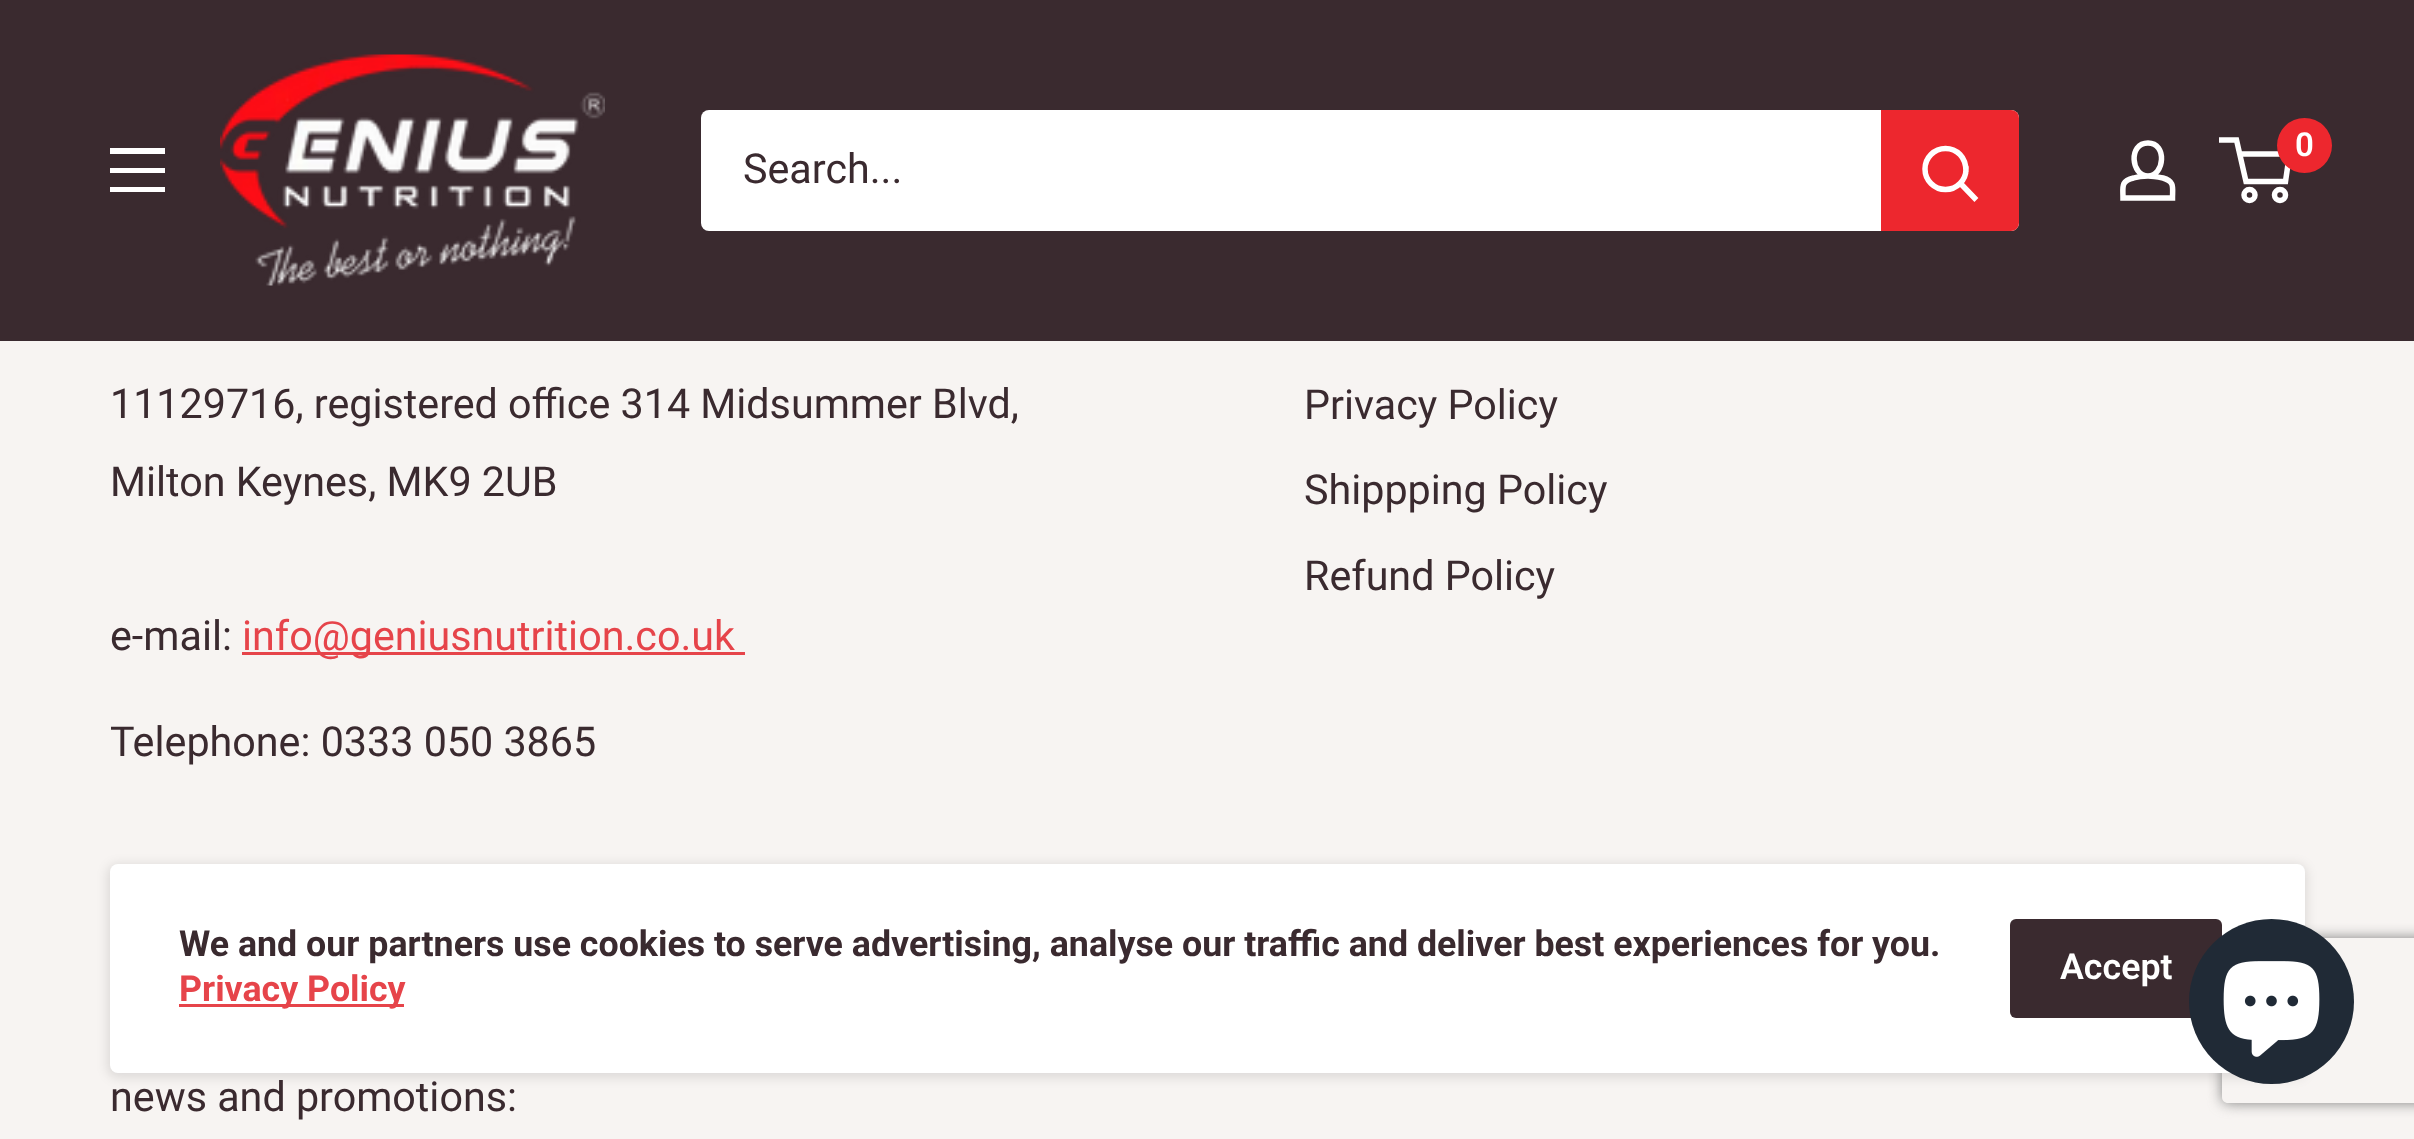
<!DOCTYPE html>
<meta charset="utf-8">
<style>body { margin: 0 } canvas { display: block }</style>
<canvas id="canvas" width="2414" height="1139"></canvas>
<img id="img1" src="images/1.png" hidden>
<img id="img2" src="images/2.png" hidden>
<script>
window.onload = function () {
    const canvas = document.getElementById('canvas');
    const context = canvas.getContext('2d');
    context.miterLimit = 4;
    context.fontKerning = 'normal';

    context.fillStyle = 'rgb(247, 244, 242)';
    context.fillRect(0, 0, 2414, 1139);
    context.fillStyle = 'rgb(58, 42, 47)';
    context.fillRect(0, 0, 2414, 341);
    context.drawImage(document.getElementById('img1'), 220, 54, 385, 232);
    context.beginPath();
    context.moveTo(2148, 176);
    context.bezierCurveTo(2153, 176, 2158, 177, 2163, 178);
    context.bezierCurveTo(2175, 181.5, 2172.5, 187.5, 2172.5, 198);
    context.lineTo(2123, 198);
    context.bezierCurveTo(2123, 187, 2120.5, 181, 2133.5, 178);
    context.bezierCurveTo(2138, 176.5, 2143, 176, 2148, 176);
    context.closePath();
    context.moveTo(2148, 176);
    context.bezierCurveTo(2131, 176, 2128, 143, 2148, 143);
    context.bezierCurveTo(2167.5, 143, 2164.5, 176, 2148, 176);
    context.closePath();
    context.strokeStyle = 'rgb(255, 255, 255)';
    context.lineWidth = 5.5;
    context.stroke();
    context.beginPath();
    context.arc(2249.5, 195, 5.5, 0, 2 * Math.PI);
    context.stroke();
    context.beginPath();
    context.arc(2280, 195, 5.5, 0, 2 * Math.PI);
    context.stroke();
    context.beginPath();
    context.moveTo(2239.5, 154);
    context.lineTo(2289.5, 154);
    context.lineTo(2285.5, 181.5);
    context.lineTo(2246, 181.5);
    context.lineTo(2236.5, 140);
    context.lineTo(2219, 140);
    context.stroke();
    context.fillStyle = 'rgb(237, 39, 46)';
    context.beginPath();
    context.arc(2304.5, 145.5, 27.5, 0, 2 * Math.PI);
    context.fill();
    context.fillStyle = 'rgb(255, 255, 255)';
    context.beginPath();
    context.moveTo(110, 187);
    context.lineTo(165, 187);
    context.lineTo(165, 192);
    context.lineTo(110, 192);
    context.closePath();
    context.moveTo(110, 148);
    context.lineTo(165, 148);
    context.lineTo(165, 154);
    context.lineTo(110, 154);
    context.closePath();
    context.moveTo(110, 168);
    context.lineTo(165, 168);
    context.lineTo(165, 173);
    context.lineTo(110, 173);
    context.closePath();
    context.fill('evenodd');
    context.beginPath();
    context.roundRect(701, 110, 1318, 121, 8);
    context.fill();
    context.fillStyle = 'rgb(237, 39, 46)';
    context.beginPath();
    context.roundRect(1881, 110, 138, 121, [0, 8, 8, 0]);
    context.fill();
    context.beginPath();
    context.moveTo(1974.5, 198);
    context.lineTo(1961, 184);
    context.lineCap = 'square';
    context.stroke();
    context.beginPath();
    context.arc(1945.5, 169, 20.5, 0, 2 * Math.PI);
    context.stroke();
    context.fillStyle = 'rgb(230, 68, 74)';
    context.fillRect(242, 652, 492, 3);
    context.fillRect(734, 652, 11, 3);
    context.fillStyle = 'rgba(0, 0, 0, 0.1)';
    context.filter = 'blur(5.5px)';
    context.beginPath();
    context.roundRect(107, 864, 2200, 214, 11);
    context.fill();
    context.filter = 'none';
    context.save();
    context.beginPath();
    context.moveTo(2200, 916);
    context.lineTo(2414, 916);
    context.lineTo(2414, 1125);
    context.lineTo(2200, 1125);
    context.closePath();
    context.moveTo(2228, 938);
    context.lineTo(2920, 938);
    context.bezierCurveTo(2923.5, 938, 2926, 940.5, 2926, 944);
    context.lineTo(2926, 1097);
    context.bezierCurveTo(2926, 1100.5, 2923.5, 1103, 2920, 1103);
    context.lineTo(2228, 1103);
    context.bezierCurveTo(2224.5, 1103, 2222, 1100.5, 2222, 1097);
    context.lineTo(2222, 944);
    context.bezierCurveTo(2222, 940.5, 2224.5, 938, 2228, 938);
    context.closePath();
    context.clip('evenodd');
    context.fillStyle = 'rgb(128, 128, 128)';
    context.filter = 'blur(7px)';
    context.beginPath();
    context.roundRect(2222, 938, 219, 165, 6);
    context.fill();
    context.filter = 'none';
    context.restore();
    context.fillStyle = 'rgb(255, 255, 255)';
    context.beginPath();
    context.roundRect(110, 864, 2195, 209, 8);
    context.fill();
    context.fillStyle = 'rgb(230, 68, 74)';
    context.fillRect(179, 1004, 225, 3);
    context.fillStyle = 'rgb(58, 42, 47)';
    context.beginPath();
    context.roundRect(2010, 919, 212, 99, 6);
    context.fill();
    context.fillStyle = 'rgb(32, 42, 54)';
    context.beginPath();
    context.arc(2271.5, 1001.5, 82.5, 0, 2 * Math.PI);
    context.fill();
    context.drawImage(document.getElementById('img2'), 2223, 961, 97, 96);
    context.font = '600 33px Roboto';
    context.fillStyle = 'rgb(255, 255, 255)';
    context.fillText('0', 2295, 156);
    context.font = '41.25px Roboto';
    context.fillStyle = 'rgb(58, 42, 47)';
    context.fillText('Search...', 743, 183);
    context.fillText('11129716, registered office 314 Midsummer Blvd,', 110, 418);
    context.fillText('Milton Keynes, MK9 2UB', 110, 496);
    context.fillText('e-mail:', 110, 650);
    context.fillStyle = 'rgb(230, 68, 74)';
    context.fillText('info@geniusnutrition.co.uk', 242, 650);
    context.fillStyle = 'rgb(58, 42, 47)';
    context.fillText('Telephone: 0333 050 3865', 110, 756);
    context.fillText('Privacy Policy', 1304, 419);
    context.fillText('Shippping Policy', 1304, 504);
    context.fillText('Refund Policy', 1304, 590);
    context.fillText('news and promotions:', 110, 1111);
    context.font = 'bold 35.75px Roboto';
    context.fillText('We and our partners use cookies to serve advertising, analyse our traffic and deliver best experiences for you.', 179, 956);
    context.fillStyle = 'rgb(230, 68, 74)';
    context.fillText('Privacy Policy', 179, 1001);
    context.font = '600 35.75px Roboto';
    context.fillStyle = 'rgb(255, 255, 255)';
    context.fillText('Accept', 2060, 979);
};
</script>
